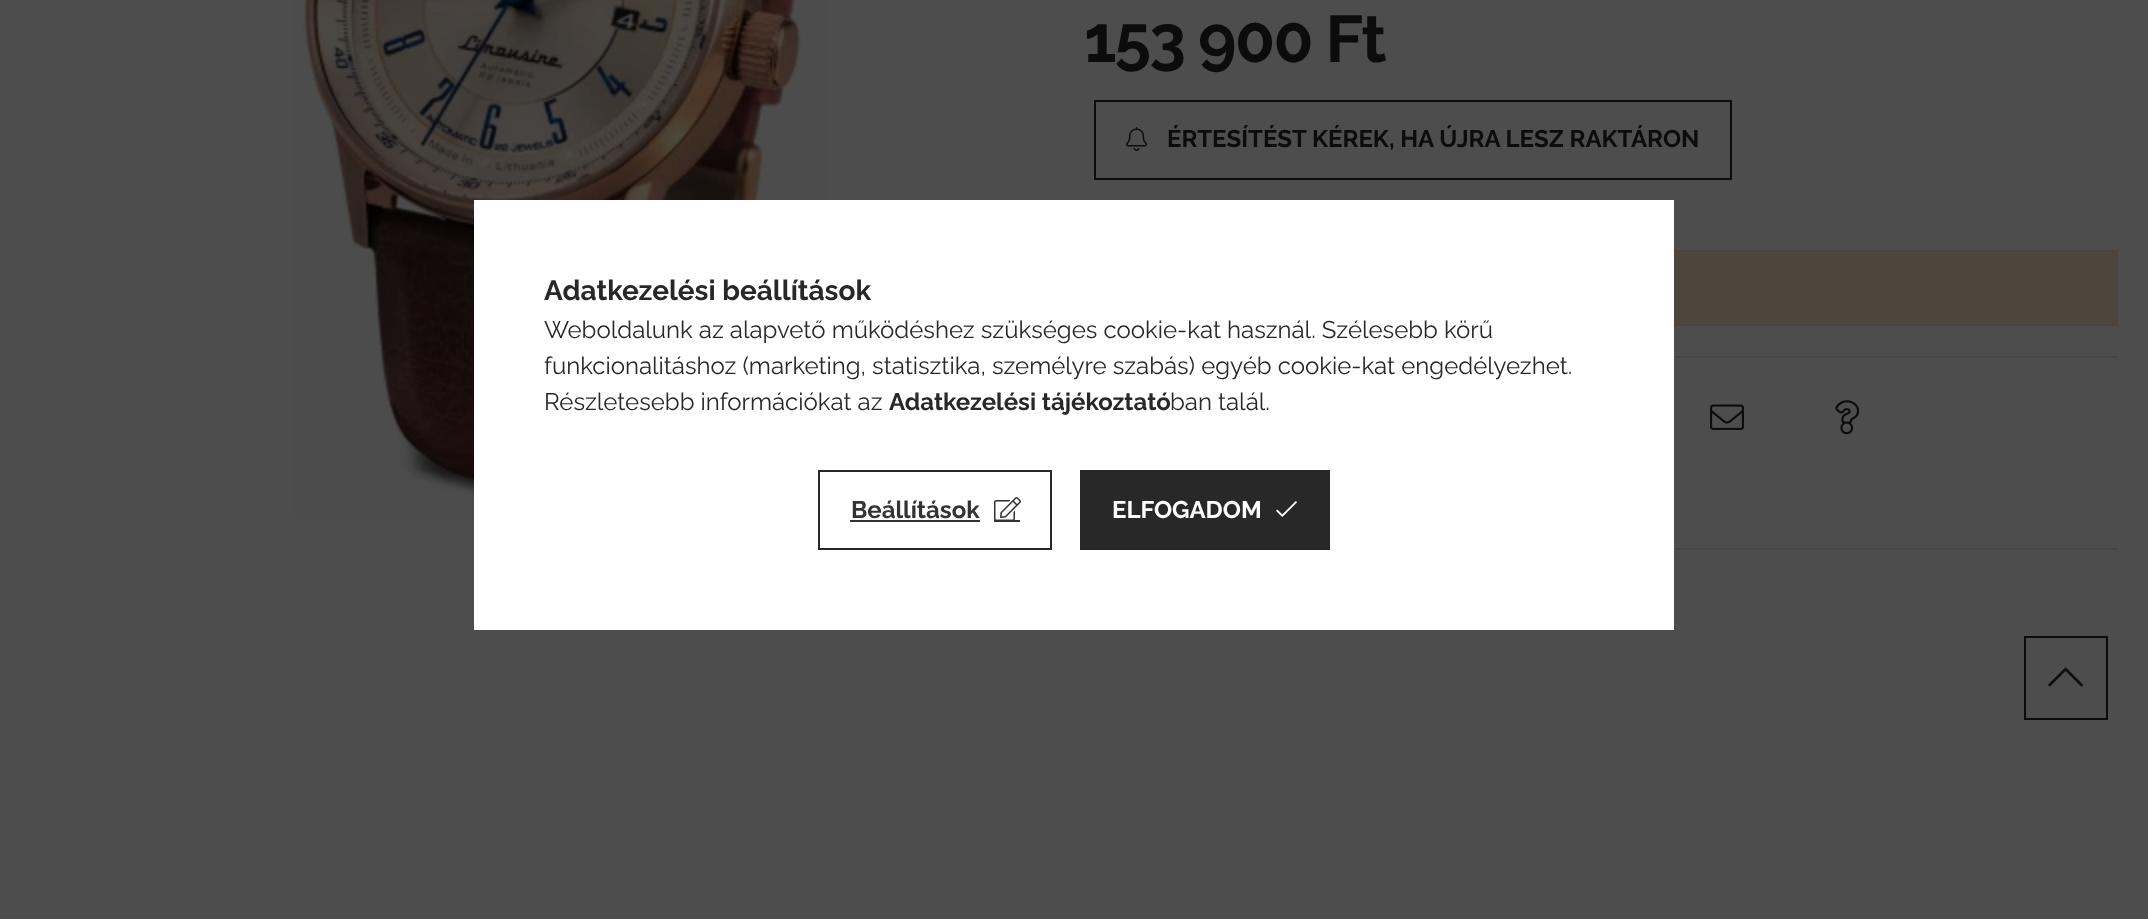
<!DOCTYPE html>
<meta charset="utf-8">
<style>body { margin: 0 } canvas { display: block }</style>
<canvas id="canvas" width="2148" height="919"></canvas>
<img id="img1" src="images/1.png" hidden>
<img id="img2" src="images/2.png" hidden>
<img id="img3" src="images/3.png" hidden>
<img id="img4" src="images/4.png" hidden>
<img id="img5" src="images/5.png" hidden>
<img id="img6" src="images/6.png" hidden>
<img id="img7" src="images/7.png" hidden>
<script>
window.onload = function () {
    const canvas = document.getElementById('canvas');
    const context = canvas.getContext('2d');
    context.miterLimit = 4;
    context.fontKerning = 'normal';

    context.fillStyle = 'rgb(77, 77, 77)';
    context.fillRect(0, 0, 2148, 919);
    context.drawImage(document.getElementById('img1'), 293, 0, 534, 519);
    context.strokeStyle = 'rgb(12, 12, 12)';
    context.lineWidth = 2;
    context.strokeRect(1095, 101, 636, 78);
    context.drawImage(document.getElementById('img2'), 1126, 127, 22, 24);
    context.fillStyle = 'rgb(76, 70, 61)';
    context.fillRect(1674, 252, 442, 72);
    context.strokeStyle = 'rgb(75, 68, 55)';
    context.strokeRect(1095, 251, 1022, 74);
    context.fillStyle = 'rgb(70, 70, 70)';
    context.fillRect(1674, 356, 444, 2);
    context.drawImage(document.getElementById('img3'), 1710, 404, 34, 26);
    context.drawImage(document.getElementById('img4'), 1835, 400, 25, 35);
    context.fillRect(1674, 548, 444, 2);
    context.fillStyle = 'rgb(255, 255, 255)';
    context.fillRect(474, 200, 1200, 430);
    context.strokeStyle = 'rgb(40, 40, 40)';
    context.strokeRect(819, 471, 232, 78);
    context.fillStyle = 'rgb(51, 51, 51)';
    context.fillRect(850, 520, 130, 2);
    context.drawImage(document.getElementById('img5'), 994, 497, 27, 23);
    context.fillRect(994, 520, 26, 2);
    context.fillStyle = 'rgb(40, 40, 40)';
    context.fillRect(1080, 470, 250, 80);
    context.drawImage(document.getElementById('img6'), 1276, 501, 21, 16);
    context.strokeStyle = 'rgb(12, 12, 12)';
    context.strokeRect(2025, 637, 82, 82);
    context.drawImage(document.getElementById('img7'), 2048, 667, 35, 20);
    context.letterSpacing = '-2px';
    context.font = 'bold 66px Raleway';
    context.fillStyle = 'rgb(12, 12, 12)';
    context.fillText('153 900 Ft', 1084, 62);
    context.letterSpacing = '0px';
    context.font = 'bold 24px Raleway';
    context.fillText('ÉRTESÍTÉST KÉREK, HA ÚJRA LESZ RAKTÁRON', 1167, 147);
    context.font = 'bold 28px Raleway';
    context.fillStyle = 'rgb(40, 40, 40)';
    context.fillText('Adatkezelési beállítások', 544, 300);
    context.font = '24px Raleway';
    context.fillText('Weboldalunk az alapvető működéshez szükséges cookie-kat használ. Szélesebb körű', 544, 338);
    context.fillText('funkcionalitáshoz (marketing, statisztika, személyre szabás) egyéb cookie-kat engedélyezhet.', 544, 374);
    context.fillText('Részletesebb információkat az', 544, 410);
    context.font = 'bold 24px Raleway';
    context.fillText('Adatkezelési tájékoztató', 889, 410);
    context.font = '24px Raleway';
    context.fillText('ban talál.', 1170, 410);
    context.font = 'bold 24px Raleway';
    context.fillStyle = 'rgb(51, 51, 51)';
    context.fillText('Beállítások', 851, 518);
    context.fillStyle = 'rgb(255, 255, 255)';
    context.fillText('ELFOGADOM', 1112, 518);
};
</script>
